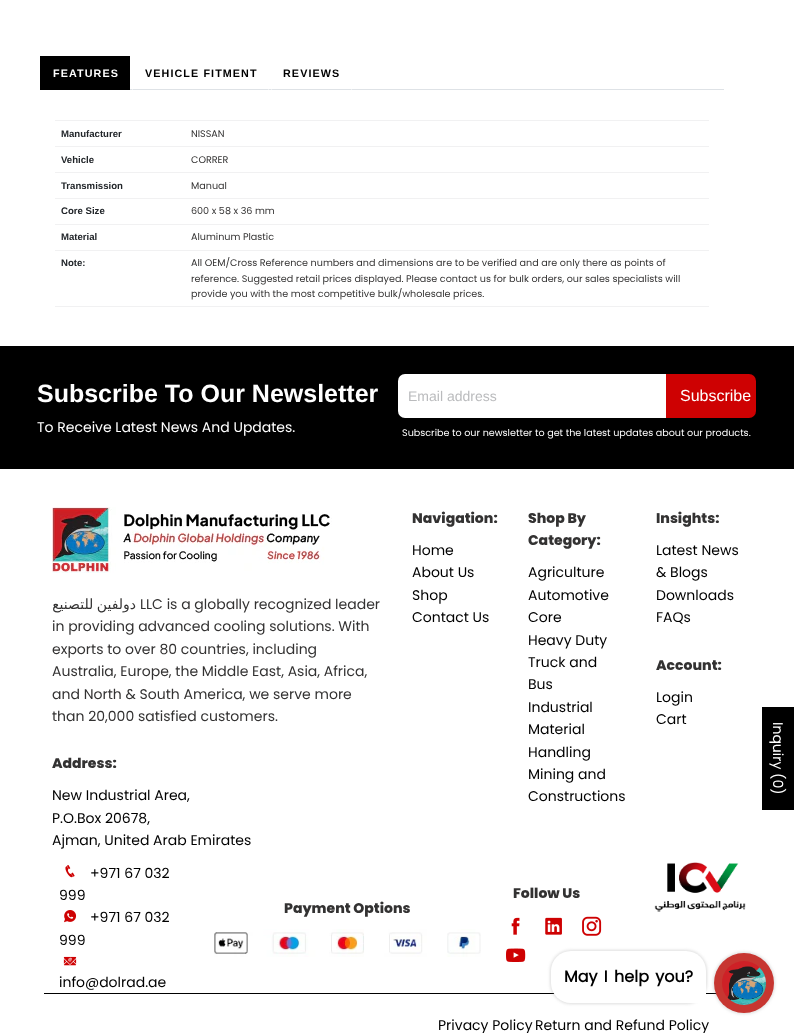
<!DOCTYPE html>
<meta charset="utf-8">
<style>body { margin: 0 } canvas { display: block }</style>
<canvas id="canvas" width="794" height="1033"></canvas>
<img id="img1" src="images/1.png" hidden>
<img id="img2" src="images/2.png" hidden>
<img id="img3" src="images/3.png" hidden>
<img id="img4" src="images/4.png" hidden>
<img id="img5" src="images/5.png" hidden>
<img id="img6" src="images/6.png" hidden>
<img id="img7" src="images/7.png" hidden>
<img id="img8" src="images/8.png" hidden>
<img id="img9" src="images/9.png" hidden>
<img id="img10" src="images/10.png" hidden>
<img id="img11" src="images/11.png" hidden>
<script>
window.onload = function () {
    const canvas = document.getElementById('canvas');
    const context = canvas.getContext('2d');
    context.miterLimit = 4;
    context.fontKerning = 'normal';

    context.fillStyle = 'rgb(255, 255, 255)';
    context.fillRect(0, 0, 794, 1033);
    context.fillStyle = 'rgb(222, 226, 230)';
    context.fillRect(130, 89, 594, 1);
    context.fillStyle = 'rgb(0, 0, 0)';
    context.fillRect(40, 56, 90, 34);
    context.fillStyle = 'rgb(255, 255, 255)';
    context.fillRect(132, 89, 137, 1);
    context.fillStyle = 'rgb(222, 226, 230)';
    context.beginPath();
    context.moveTo(269, 90);
    context.lineTo(132, 90);
    context.lineTo(133, 89);
    context.lineTo(268, 89);
    context.closePath();
    context.fill();
    context.fillStyle = 'rgb(255, 255, 255)';
    context.fillRect(271, 89, 81, 1);
    context.fillStyle = 'rgb(222, 226, 230)';
    context.beginPath();
    context.moveTo(352, 90);
    context.lineTo(271, 90);
    context.lineTo(272, 89);
    context.lineTo(351, 89);
    context.closePath();
    context.fill();
    context.fillStyle = 'rgb(241, 241, 242)';
    context.fillRect(55, 120, 654, 1);
    context.fillRect(55, 146, 654, 1);
    context.fillRect(55, 172, 654, 1);
    context.fillRect(55, 198, 654, 1);
    context.fillRect(55, 224, 654, 1);
    context.fillRect(55, 250, 654, 1);
    context.fillRect(55, 306, 654, 1);
    context.fillStyle = 'rgb(0, 0, 0)';
    context.fillRect(0, 346, 794, 123);
    context.fillStyle = 'rgb(255, 255, 255)';
    context.beginPath();
    context.roundRect(398, 374, 270, 44, [7, 2, 2, 7]);
    context.fill();
    context.fillStyle = 'rgb(206, 1, 2)';
    context.beginPath();
    context.roundRect(666, 374, 90, 44, [0, 7, 7, 0]);
    context.fill();
    context.drawImage(document.getElementById('img1'), 52, 507, 280, 66);
    context.drawImage(document.getElementById('img2'), 65, 865, 10, 13);
    context.drawImage(document.getElementById('img3'), 64, 910, 13, 13);
    context.drawImage(document.getElementById('img4'), 63, 956, 14, 10);
    context.drawImage(document.getElementById('img5'), 511, 917, 9, 18);
    context.drawImage(document.getElementById('img6'), 545, 917, 17, 18);
    context.drawImage(document.getElementById('img7'), 582, 916, 20, 20);
    context.drawImage(document.getElementById('img8'), 506, 948, 20, 14);
    context.drawImage(document.getElementById('img9'), 214, 929, 267, 28);
    context.drawImage(document.getElementById('img10'), 654, 862, 92, 50);
    context.fillStyle = 'rgb(0, 0, 0)';
    context.fillRect(44, 993, 673, 1);
    context.fillRect(762, 707, 32, 103);
    context.fillStyle = 'rgba(146, 146, 146, 0.3)';
    context.filter = 'blur(1.5px)';
    context.beginPath();
    context.roundRect(550, 950, 157, 54, 21);
    context.fill();
    context.filter = 'none';
    context.fillStyle = 'rgb(255, 255, 255)';
    context.beginPath();
    context.roundRect(551, 951, 155, 52, [20, 20, 3, 20]);
    context.fill();
    context.fillStyle = 'rgba(146, 146, 146, 0.3)';
    context.filter = 'blur(1.5px)';
    context.beginPath();
    context.roundRect(713, 952, 62, 62, 31);
    context.fill();
    context.filter = 'none';
    context.fillStyle = 'rgb(199, 54, 49)';
    context.beginPath();
    context.arc(744, 983, 30, 0, 2 * Math.PI);
    context.fill();
    context.drawImage(document.getElementById('img11'), 722, 961, 44, 44);
    context.letterSpacing = '1.1px';
    context.font = 'bold 10.75px Liberation Sans';
    context.fillStyle = 'rgb(255, 255, 255)';
    context.fillText('FEATURES', 53, 77);
    context.fillStyle = 'rgb(0, 0, 0)';
    context.fillText('VEHICLE FITMENT', 145, 77);
    context.fillText('REVIEWS', 283, 77);
    context.letterSpacing = '0px';
    context.font = 'bold 9.6px Liberation Sans';
    context.fillStyle = 'rgb(33, 37, 41)';
    context.fillText('Manufacturer', 61, 137);
    context.font = '9.6px Poppins';
    context.fillStyle = 'rgb(51, 50, 50)';
    context.fillText('NISSAN', 191, 137);
    context.font = 'bold 9.6px Liberation Sans';
    context.fillStyle = 'rgb(33, 37, 41)';
    context.fillText('Vehicle', 61, 163);
    context.font = '9.6px Poppins';
    context.fillStyle = 'rgb(51, 50, 50)';
    context.fillText('CORRER', 191, 163);
    context.font = 'bold 9.6px Liberation Sans';
    context.fillStyle = 'rgb(33, 37, 41)';
    context.fillText('Transmission', 61, 189);
    context.font = '9.6px Poppins';
    context.fillStyle = 'rgb(51, 50, 50)';
    context.fillText('Manual', 191, 189);
    context.font = 'bold 9.6px Liberation Sans';
    context.fillStyle = 'rgb(33, 37, 41)';
    context.fillText('Core Size', 61, 214);
    context.font = '9.6px Poppins';
    context.fillStyle = 'rgb(51, 50, 50)';
    context.fillText('600 x 58 x 36 mm', 191, 214);
    context.font = 'bold 9.6px Liberation Sans';
    context.fillStyle = 'rgb(33, 37, 41)';
    context.fillText('Material', 61, 240);
    context.font = '9.6px Poppins';
    context.fillStyle = 'rgb(51, 50, 50)';
    context.fillText('Aluminum Plastic', 191, 240);
    context.font = 'bold 9.6px Liberation Sans';
    context.fillStyle = 'rgb(33, 37, 41)';
    context.fillText('Note:', 61, 266);
    context.font = '9.6px Poppins';
    context.fillStyle = 'rgb(51, 50, 50)';
    context.fillText('All OEM/Cross Reference numbers and dimensions are to be verified and are only there as points of', 191, 266);
    context.fillText('reference. Suggested retail prices displayed. Please contact us for bulk orders, our sales specialists will', 191, 282);
    context.fillText('provide you with the most competitive bulk/wholesale prices.', 191, 297);
    context.font = 'bold 25px Liberation Sans';
    context.fillStyle = 'rgb(255, 255, 255)';
    context.fillText('Subscribe To Our Newsletter', 37, 402);
    context.font = '14px Poppins';
    context.fillText('To Receive Latest News And Updates.', 37, 432);
    context.font = '14px Liberation Sans';
    context.fillStyle = 'rgb(186, 187, 189)';
    context.fillText('Email address', 408, 401);
    context.font = '16px Liberation Sans';
    context.fillStyle = 'rgb(255, 255, 255)';
    context.fillText('Subscribe', 680, 401);
    context.font = '9.6px Poppins';
    context.fillText('Subscribe to our newsletter to get the latest updates about our products.', 402, 436);
    context.wordSpacing = '-1px';
    context.direction = 'rtl';
    context.font = '14px DejaVu Sans';
    context.fillStyle = 'rgb(51, 50, 50)';
    context.fillText('دولفين للتصنيع', 136, 609);
    context.wordSpacing = '0px';
    context.direction = 'ltr';
    context.font = '14px Poppins';
    context.fillText('LLC is a globally recognized leader', 140, 609);
    context.fillText('in providing advanced cooling solutions. With', 52, 631);
    context.fillText('exports to over 80 countries, including', 52, 654);
    context.fillText('Australia, Europe, the Middle East, Asia, Africa,', 52, 676);
    context.fillText('and North & South America, we serve more', 52, 699);
    context.fillText('than 20,000 satisfied customers.', 52, 721);
    context.font = '800 14px Poppins';
    context.fillText('Address:', 52, 768);
    context.font = '14px Poppins';
    context.fillStyle = 'rgb(0, 0, 0)';
    context.fillText('New Industrial Area,', 52, 800);
    context.fillText('P.O.Box 20678,', 52, 823);
    context.fillText('Ajman, United Arab Emirates', 52, 845);
    context.font = '800 14px Poppins';
    context.fillStyle = 'rgb(51, 50, 50)';
    context.fillText('Navigation:', 412, 523);
    context.font = '14px Poppins';
    context.fillStyle = 'rgb(0, 0, 0)';
    context.fillText('Home', 412, 555);
    context.fillText('About Us', 412, 577);
    context.fillText('Shop', 412, 600);
    context.fillText('Contact Us', 412, 622);
    context.font = '800 14px Poppins';
    context.fillStyle = 'rgb(51, 50, 50)';
    context.fillText('Shop By', 528, 523);
    context.fillText('Category:', 528, 545);
    context.font = '14px Poppins';
    context.fillStyle = 'rgb(0, 0, 0)';
    context.fillText('Agriculture', 528, 577);
    context.fillText('Automotive', 528, 600);
    context.fillText('Core', 528, 622);
    context.fillText('Heavy Duty', 528, 645);
    context.fillText('Truck and', 528, 667);
    context.fillText('Bus', 528, 689);
    context.fillText('Industrial', 528, 712);
    context.fillText('Material', 528, 734);
    context.fillText('Handling', 528, 757);
    context.fillText('Mining and', 528, 779);
    context.fillText('Constructions', 528, 801);
    context.font = '800 14px Poppins';
    context.fillStyle = 'rgb(51, 50, 50)';
    context.fillText('Insights:', 656, 523);
    context.font = '14px Poppins';
    context.fillStyle = 'rgb(0, 0, 0)';
    context.fillText('Latest News', 656, 555);
    context.fillText('& Blogs', 656, 577);
    context.fillText('Downloads', 656, 600);
    context.fillText('FAQs', 656, 622);
    context.font = '800 14px Poppins';
    context.fillStyle = 'rgb(51, 50, 50)';
    context.fillText('Account:', 656, 670);
    context.font = '14px Poppins';
    context.fillStyle = 'rgb(0, 0, 0)';
    context.fillText('Login', 656, 702);
    context.fillText('Cart', 656, 724);
    context.fillText('+971 67 032', 90, 878);
    context.fillText('999', 59, 900);
    context.fillText('+971 67 032', 90, 922);
    context.fillText('999', 59, 945);
    context.fillText('info@dolrad.ae', 59, 987);
    context.font = '800 14px Poppins';
    context.fillStyle = 'rgb(51, 50, 50)';
    context.fillText('Follow Us', 513, 898);
    context.fillText('Payment Options', 284, 913);
    context.font = '14px Poppins';
    context.fillStyle = 'rgb(0, 0, 0)';
    context.fillText('Privacy Policy', 438, 1030);
    context.fillText('Return and Refund Policy', 535, 1030);
    context.fillStyle = 'rgb(255, 255, 255)';
    context.save();
    context.translate(773, 722);
    context.rotate(90 * Math.PI / 180);
    context.fillText('Inquiry (0)', 0, 0);
    context.restore();
    context.wordSpacing = '2px';
    context.font = 'bold 16px Poppins';
    context.fillStyle = 'rgb(0, 0, 0)';
    context.fillText('May I help you?', 564, 982);
};
</script>
